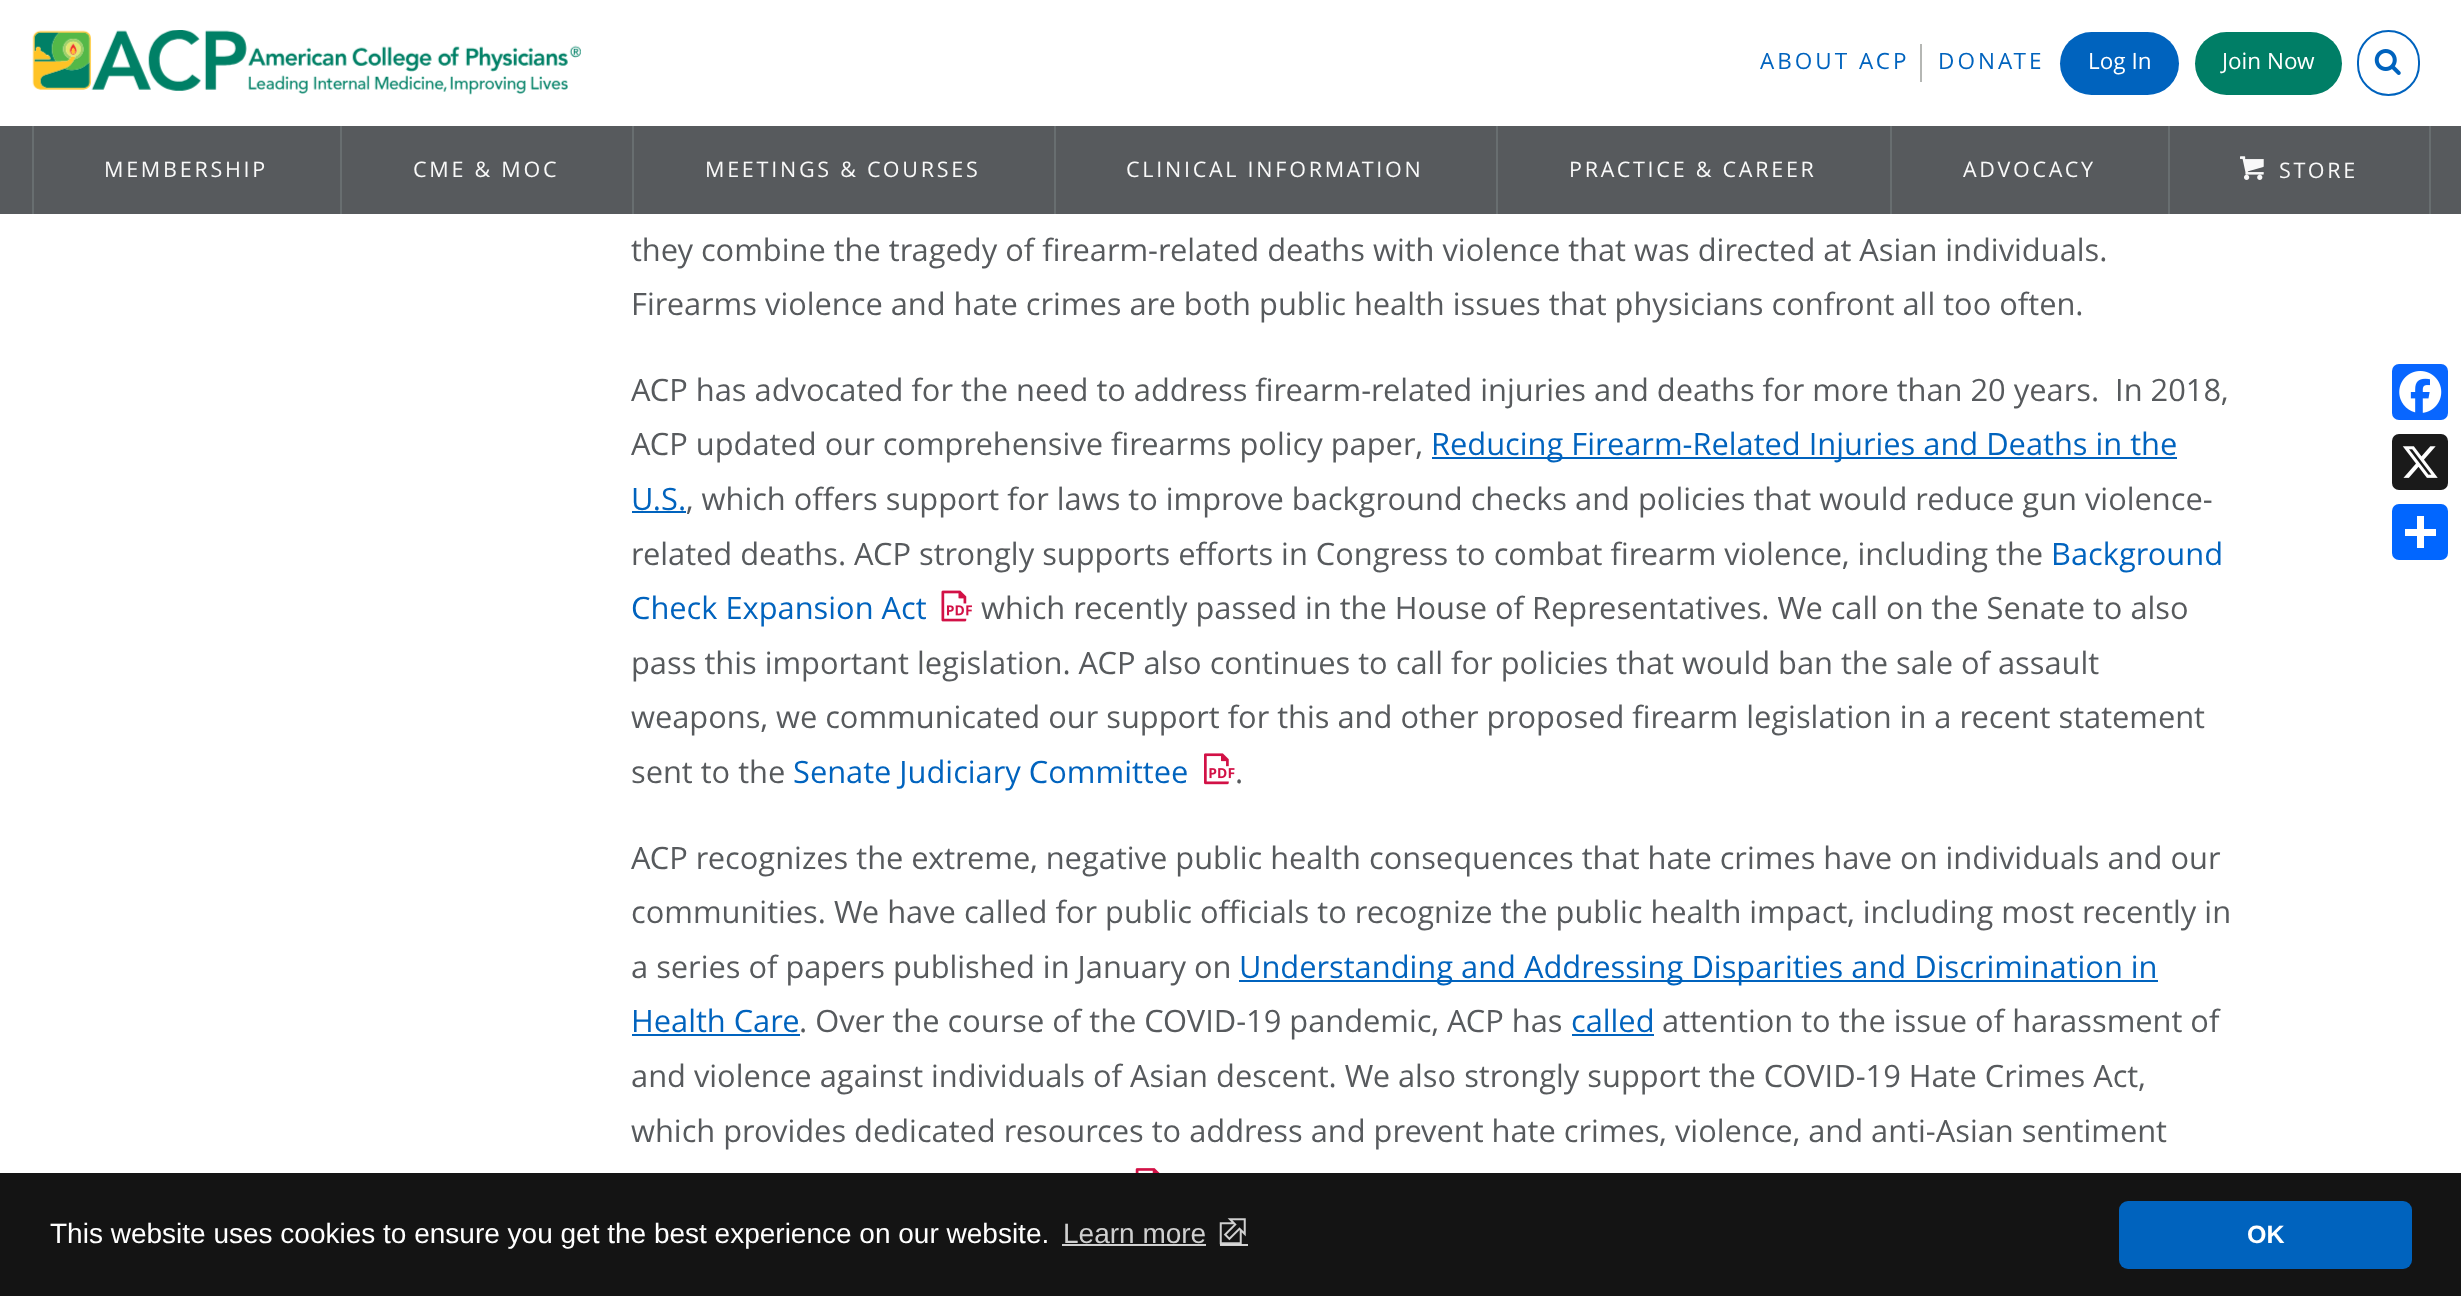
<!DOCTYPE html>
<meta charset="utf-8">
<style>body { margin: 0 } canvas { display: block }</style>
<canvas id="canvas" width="2461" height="1296"></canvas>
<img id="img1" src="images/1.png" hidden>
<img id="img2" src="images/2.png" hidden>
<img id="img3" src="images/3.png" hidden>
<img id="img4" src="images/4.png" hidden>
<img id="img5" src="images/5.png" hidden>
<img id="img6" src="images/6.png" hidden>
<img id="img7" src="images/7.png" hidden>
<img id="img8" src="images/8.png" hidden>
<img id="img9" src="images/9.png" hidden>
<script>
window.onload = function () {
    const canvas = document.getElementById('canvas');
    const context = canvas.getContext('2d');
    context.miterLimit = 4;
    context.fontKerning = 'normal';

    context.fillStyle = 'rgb(255, 255, 255)';
    context.fillRect(0, 0, 2461, 1296);
    context.drawImage(document.getElementById('img1'), 32, 30, 549, 65);
    context.fillStyle = 'rgb(181, 183, 180)';
    context.fillRect(1920, 44, 2, 38);
    context.fillStyle = 'rgb(0, 99, 190)';
    context.beginPath();
    context.roundRect(2060, 32, 119, 63, 31.5);
    context.fill();
    context.fillStyle = 'rgb(0, 126, 102)';
    context.beginPath();
    context.roundRect(2195, 32, 147, 63, 31.5);
    context.fill();
    context.beginPath();
    context.roundRect(2358, 31, 61, 64, 30.5);
    context.strokeStyle = 'rgb(0, 99, 190)';
    context.lineWidth = 2;
    context.stroke();
    context.drawImage(document.getElementById('img2'), 2374, 49, 27, 26);
    context.fillStyle = 'rgb(87, 90, 93)';
    context.fillRect(0, 126, 2461, 88);
    context.fillStyle = 'rgb(104, 110, 112)';
    context.fillRect(340, 126, 2, 88);
    context.fillRect(32, 126, 2, 88);
    context.fillRect(632, 126, 2, 88);
    context.fillRect(1054, 126, 2, 88);
    context.fillRect(1496, 126, 2, 88);
    context.fillRect(1890, 126, 2, 88);
    context.fillRect(2168, 126, 2, 88);
    context.fillRect(2429, 126, 2, 88);
    context.drawImage(document.getElementById('img3'), 2240, 156, 24, 24);
    context.fillStyle = 'rgb(0, 99, 190)';
    context.fillRect(1432, 457, 745, 2);
    context.fillRect(632, 511, 54, 2);
    context.drawImage(document.getElementById('img4'), 941, 590, 31, 32);
    context.drawImage(document.getElementById('img5'), 1204, 753, 31, 32);
    context.fillRect(1239, 980, 919, 2);
    context.fillRect(632, 1034, 168, 2);
    context.fillRect(1572, 1034, 82, 2);
    context.drawImage(document.getElementById('img6'), 1135, 1168, 25, 5);
    context.fillStyle = 'rgb(8, 102, 255)';
    context.beginPath();
    context.roundRect(2392, 364, 56, 56, 7);
    context.fill();
    context.drawImage(document.getElementById('img7'), 2399, 371, 43, 42);
    context.fillStyle = 'rgb(26, 26, 26)';
    context.beginPath();
    context.roundRect(2392, 434, 56, 56, 7);
    context.fill();
    context.drawImage(document.getElementById('img8'), 2402, 446, 36, 32);
    context.fillStyle = 'rgb(1, 102, 255)';
    context.beginPath();
    context.roundRect(2392, 504, 56, 56, 7);
    context.fill();
    context.fillStyle = 'rgb(255, 255, 255)';
    context.fillRect(2417, 516, 7, 32);
    context.fillRect(2405, 529, 31, 7);
    context.fillStyle = 'rgb(20, 20, 20)';
    context.fillRect(0, 1173, 2461, 123);
    context.fillStyle = 'rgb(208, 208, 208)';
    context.fillRect(1062, 1244, 144, 2);
    context.fillRect(1220, 1244, 28, 2);
    context.drawImage(document.getElementById('img9'), 1219, 1218, 27, 27);
    context.fillStyle = 'rgb(0, 99, 190)';
    context.beginPath();
    context.roundRect(2119, 1201, 293, 68, 9);
    context.fill();
    context.letterSpacing = '3px';
    context.font = '22.5px Open Sans';
    context.fillText('ABOUT ACP', 1760, 69);
    context.fillText('DONATE', 1938, 69);
    context.letterSpacing = '0px';
    context.fillStyle = 'rgb(255, 255, 255)';
    context.fillText('Log In', 2088, 69);
    context.fillText('Join Now', 2222, 69);
    context.letterSpacing = '2.75px';
    context.font = '21.5px Open Sans';
    context.fillStyle = 'rgb(249, 249, 249)';
    context.fillText('MEMBERSHIP', 104, 177);
    context.fillText('CME & MOC', 413, 177);
    context.fillText('MEETINGS & COURSES', 705, 177);
    context.fillText('CLINICAL INFORMATION', 1126, 177);
    context.fillText('PRACTICE & CAREER', 1569, 177);
    context.fillText('ADVOCACY', 1963, 177);
    context.fillText('STORE', 2279, 178);
    context.letterSpacing = '0px';
    context.font = '30.8px Open Sans';
    context.fillStyle = 'rgb(87, 90, 93)';
    context.fillText('they combine the tragedy of firearm-related deaths with violence that was directed at Asian individuals.', 631, 261);
    context.fillText('Firearms violence and hate crimes are both public health issues that physicians confront all too often.', 631, 315);
    context.fillText('ACP has advocated for the need to address firearm-related injuries and deaths for more than 20 years.  In 2018,', 631, 401);
    context.fillText('ACP updated our comprehensive firearms policy paper,', 631, 455);
    context.fillStyle = 'rgb(0, 99, 190)';
    context.fillText('Reducing Firearm-Related Injuries and Deaths in the', 1431, 455);
    context.fillText('U.S.', 631, 510);
    context.fillStyle = 'rgb(87, 90, 93)';
    context.fillText(', which offers support for laws to improve background checks and policies that would reduce gun violence-', 686, 510);
    context.fillText('related deaths. ACP strongly supports efforts in Congress to combat firearm violence, including the', 631, 565);
    context.fillStyle = 'rgb(0, 99, 190)';
    context.fillText('Background', 2051, 565);
    context.fillText('Check Expansion Act', 631, 619);
    context.fillStyle = 'rgb(87, 90, 93)';
    context.fillText('which recently passed in the House of Representatives. We call on the Senate to also', 981, 619);
    context.fillText('pass this important legislation. ACP also continues to call for policies that would ban the sale of assault', 631, 674);
    context.fillText('weapons, we communicated our support for this and other proposed firearm legislation in a recent statement', 631, 728);
    context.fillText('sent to the', 631, 783);
    context.fillStyle = 'rgb(0, 99, 190)';
    context.fillText('Senate Judiciary Committee', 793, 783);
    context.fillStyle = 'rgb(87, 90, 93)';
    context.fillText('.', 1235, 783);
    context.fillText('ACP recognizes the extreme, negative public health consequences that hate crimes have on individuals and our', 631, 869);
    context.fillText('communities. We have called for public officials to recognize the public health impact, including most recently in', 631, 923);
    context.fillText('a series of papers published in January on', 631, 978);
    context.fillStyle = 'rgb(0, 99, 190)';
    context.fillText('Understanding and Addressing Disparities and Discrimination in', 1239, 978);
    context.fillText('Health Care', 631, 1032);
    context.fillStyle = 'rgb(87, 90, 93)';
    context.fillText('. Over the course of the COVID-19 pandemic, ACP has', 799, 1032);
    context.fillStyle = 'rgb(0, 99, 190)';
    context.fillText('called', 1571, 1032);
    context.fillStyle = 'rgb(87, 90, 93)';
    context.fillText('attention to the issue of harassment of', 1662, 1032);
    context.fillText('and violence against individuals of Asian descent. We also strongly support the COVID-19 Hate Crimes Act,', 631, 1087);
    context.fillText('which provides dedicated resources to address and prevent hate crimes, violence, and anti-Asian sentiment', 631, 1142);
    context.font = '28px Liberation Sans';
    context.fillStyle = 'rgb(255, 255, 255)';
    context.fillText('This website uses cookies to ensure you get the best experience on our website.', 50, 1243);
    context.fillStyle = 'rgb(208, 208, 208)';
    context.fillText('Learn more', 1063, 1243);
    context.font = 'bold 25px Liberation Sans';
    context.fillStyle = 'rgb(255, 255, 255)';
    context.fillText('OK', 2247, 1243);
};
</script>
